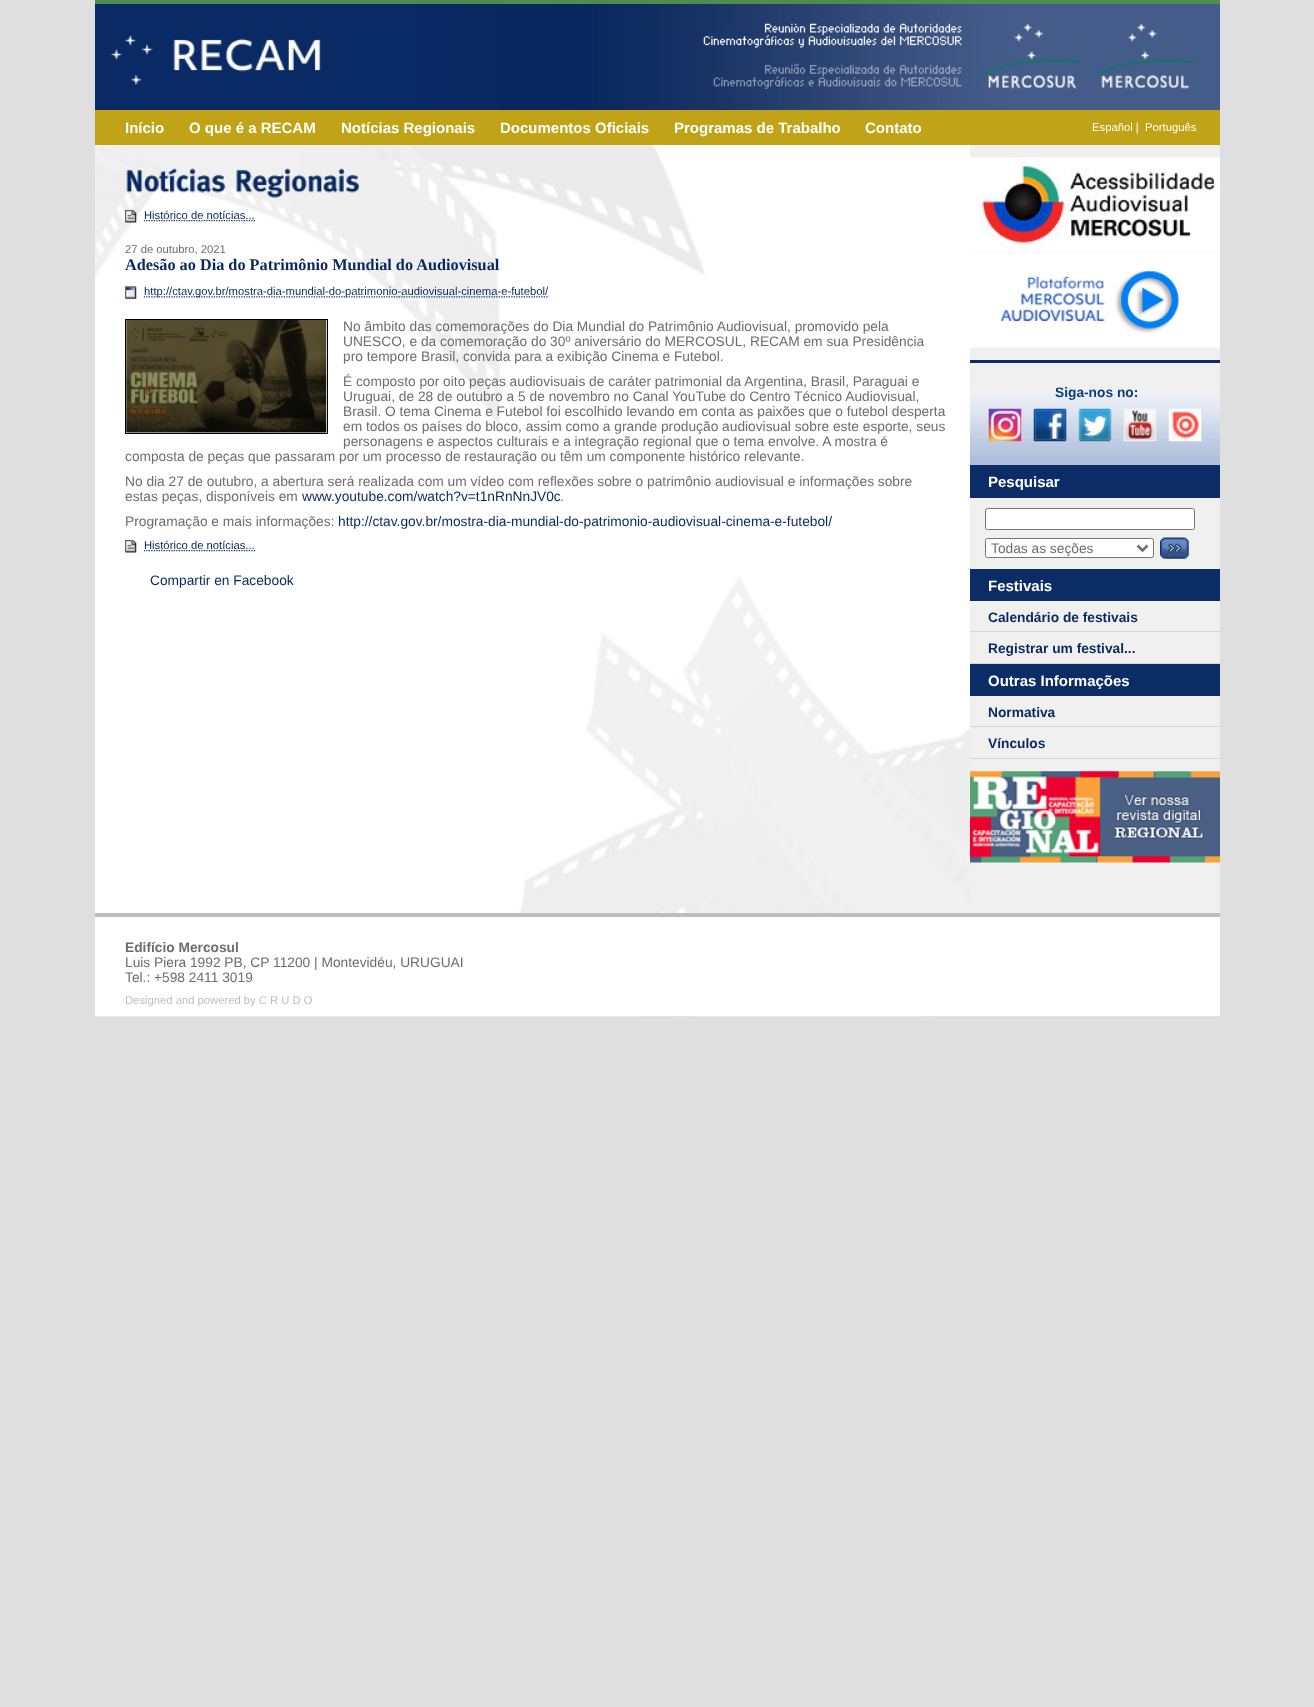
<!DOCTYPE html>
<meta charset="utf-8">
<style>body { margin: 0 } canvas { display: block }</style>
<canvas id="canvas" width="1314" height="1707"></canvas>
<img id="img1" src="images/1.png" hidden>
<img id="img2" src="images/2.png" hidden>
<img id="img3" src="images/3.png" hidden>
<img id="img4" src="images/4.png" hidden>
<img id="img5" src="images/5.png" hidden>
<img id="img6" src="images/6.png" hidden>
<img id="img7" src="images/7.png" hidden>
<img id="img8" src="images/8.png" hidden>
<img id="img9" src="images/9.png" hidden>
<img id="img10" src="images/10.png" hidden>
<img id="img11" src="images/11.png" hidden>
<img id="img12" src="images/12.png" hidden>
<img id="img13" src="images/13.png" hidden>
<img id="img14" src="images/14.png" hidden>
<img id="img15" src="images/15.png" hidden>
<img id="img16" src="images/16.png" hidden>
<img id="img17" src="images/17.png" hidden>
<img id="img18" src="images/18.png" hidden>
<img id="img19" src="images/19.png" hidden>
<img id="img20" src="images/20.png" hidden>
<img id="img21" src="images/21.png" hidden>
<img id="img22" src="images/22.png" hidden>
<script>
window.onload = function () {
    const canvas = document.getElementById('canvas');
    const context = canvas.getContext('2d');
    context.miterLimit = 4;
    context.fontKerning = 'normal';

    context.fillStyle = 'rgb(223, 223, 223)';
    context.fillRect(0, 0, 1314, 1707);
    context.drawImage(document.getElementById('img1'), 95, 4, 1125, 106);
    context.fillStyle = 'rgb(77, 141, 80)';
    context.fillRect(95, 0, 1125, 4);
    context.drawImage(document.getElementById('img2'), 111, 35, 210, 51);
    context.drawImage(document.getElementById('img3'), 703, 23, 491, 66);
    context.fillStyle = 'rgb(192, 163, 23)';
    context.fillRect(95, 110, 1125, 35);
    context.drawImage(document.getElementById('img4'), 95, 145, 1125, 872);
    context.drawImage(document.getElementById('img5'), 126, 168, 233, 30);
    context.drawImage(document.getElementById('img6'), 125, 210, 12, 13);
    context.drawImage(document.getElementById('img7'), 143, 220, 112, 2);
    context.drawImage(document.getElementById('img8'), 125, 286, 12, 13);
    context.drawImage(document.getElementById('img9'), 143, 296, 406, 2);
    context.strokeStyle = 'rgb(0, 0, 0)';
    context.strokeRect(125.5, 319.5, 202, 114);
    context.drawImage(document.getElementById('img10'), 126, 320, 201, 113);
    context.drawImage(document.getElementById('img11'), 125, 540, 12, 13);
    context.drawImage(document.getElementById('img12'), 143, 550, 112, 2);
    context.drawImage(document.getElementById('img13'), 970, 157, 250, 96);
    context.drawImage(document.getElementById('img14'), 970, 253, 250, 95);
    context.drawImage(document.getElementById('img15'), 970, 390, 250, 75);
    context.fillStyle = 'rgb(12, 44, 101)';
    context.fillRect(970, 360, 250, 3);
    context.drawImage(document.getElementById('img16'), 988, 408, 34, 34);
    context.drawImage(document.getElementById('img17'), 1033, 408, 34, 34);
    context.drawImage(document.getElementById('img18'), 1078, 408, 34, 34);
    context.drawImage(document.getElementById('img19'), 1123, 408, 34, 34);
    context.drawImage(document.getElementById('img20'), 1168, 408, 34, 34);
    context.fillRect(970, 465, 250, 33);
    context.fillStyle = 'rgb(255, 255, 255)';
    context.beginPath();
    context.roundRect(985.5, 508.5, 209, 21, 2);
    context.fill();
    context.strokeStyle = 'rgb(118, 118, 118)';
    context.stroke();
    context.beginPath();
    context.roundRect(985.5, 538.5, 168, 19, 2);
    context.fill();
    context.stroke();
    context.beginPath();
    context.moveTo(1137.5, 545.5);
    context.lineTo(1142.5, 550.5);
    context.lineTo(1147.5, 545.5);
    context.strokeStyle = 'rgb(110, 110, 110)';
    context.lineWidth = 2.5;
    context.stroke();
    context.drawImage(document.getElementById('img21'), 1160, 537, 29, 22);
    context.fillStyle = 'rgb(12, 44, 101)';
    context.fillRect(970, 569, 250, 32);
    context.fillStyle = 'rgb(214, 214, 214)';
    context.fillRect(970, 631, 250, 1);
    context.fillRect(970, 663, 250, 1);
    context.fillStyle = 'rgb(12, 44, 101)';
    context.fillRect(970, 664, 250, 32);
    context.fillStyle = 'rgb(214, 214, 214)';
    context.fillRect(970, 726, 250, 1);
    context.fillRect(970, 758, 250, 1);
    context.drawImage(document.getElementById('img22'), 970, 771, 250, 92);
    context.fillStyle = 'rgb(255, 255, 255)';
    context.fillRect(498, 917, 722, 99);
    context.fillStyle = 'rgb(190, 190, 190)';
    context.fillRect(95, 913, 1125, 4);
    context.font = 'bold 15px Liberation Sans';
    context.fillStyle = 'rgb(255, 255, 255)';
    context.fillText('Início', 125, 133);
    context.fillText('O que é a RECAM', 189, 133);
    context.fillText('Notícias Regionais', 341, 133);
    context.fillText('Documentos Oficiais', 500, 133);
    context.fillText('Programas de Trabalho', 674, 133);
    context.fillText('Contato', 865, 133);
    context.font = '11.25px Liberation Sans';
    context.fillText('Español |', 1092, 131);
    context.fillText('Português', 1145, 131);
    context.fillStyle = 'rgb(9, 40, 95)';
    context.fillText('Histórico de notícias...', 144, 219);
    context.fillStyle = 'rgb(109, 109, 109)';
    context.fillText('27 de outubro, 2021', 125, 253);
    context.font = 'bold 16.25px Liberation Serif';
    context.fillStyle = 'rgb(9, 40, 95)';
    context.fillText('Adesão ao Dia do Patrimônio Mundial do Audiovisual', 125, 270);
    context.font = '11.25px Liberation Sans';
    context.fillText('http://ctav.gov.br/mostra-dia-mundial-do-patrimonio-audiovisual-cinema-e-futebol/', 144, 295);
    context.font = '13.75px Liberation Sans';
    context.fillStyle = 'rgb(109, 109, 109)';
    context.fillText('No âmbito das comemorações do Dia Mundial do Patrimônio Audiovisual, promovido pela', 343, 331);
    context.fillText('UNESCO, e da comemoração do 30º aniversário do MERCOSUL, RECAM em sua Presidência', 343, 346);
    context.fillText('pro tempore Brasil, convida para a exibição Cinema e Futebol.', 343, 361);
    context.fillText('É composto por oito peças audiovisuais de caráter patrimonial da Argentina, Brasil, Paraguai e', 343, 386);
    context.fillText('Uruguai, de 28 de outubro a 5 de novembro no Canal YouTube do Centro Técnico Audiovisual,', 343, 401);
    context.fillText('Brasil. O tema Cinema e Futebol foi escolhido levando em conta as paixões que o futebol desperta', 343, 416);
    context.fillText('em todos os países do bloco, assim como a grande produção audiovisual sobre este esporte, seus', 343, 431);
    context.fillText('personagens e aspectos culturais e a integração regional que o tema envolve. A mostra é', 343, 446);
    context.fillText('composta de peças que passaram por um processo de restauração ou têm um componente histórico relevante.', 125, 461);
    context.fillText('No dia 27 de outubro, a abertura será realizada com um vídeo com reflexões sobre o patrimônio audiovisual e informações sobre', 125, 486);
    context.fillText('estas peças, disponíveis em', 125, 501);
    context.fillStyle = 'rgb(9, 40, 95)';
    context.fillText('www.youtube.com/watch?v=t1nRnNnJV0c', 302, 501);
    context.fillStyle = 'rgb(109, 109, 109)';
    context.fillText('.', 560, 501);
    context.fillText('Programação e mais informações:', 125, 526);
    context.fillStyle = 'rgb(9, 40, 95)';
    context.fillText('http://ctav.gov.br/mostra-dia-mundial-do-patrimonio-audiovisual-cinema-e-futebol/', 338, 526);
    context.font = '11.25px Liberation Sans';
    context.fillText('Histórico de notícias...', 144, 549);
    context.font = '13.75px Liberation Sans';
    context.fillText('Compartir en Facebook', 150, 585);
    context.font = 'bold 13.75px Liberation Sans';
    context.fillStyle = 'rgb(11, 63, 121)';
    context.fillText('Siga-nos no:', 1055, 397);
    context.font = 'bold 15px Liberation Sans';
    context.fillStyle = 'rgb(255, 255, 255)';
    context.fillText('Pesquisar', 988, 487);
    context.font = '13.75px Liberation Sans';
    context.fillStyle = 'rgb(109, 109, 109)';
    context.fillText('Todas as seções', 991, 553);
    context.font = 'bold 15px Liberation Sans';
    context.fillStyle = 'rgb(255, 255, 255)';
    context.fillText('Festivais', 988, 591);
    context.font = 'bold 13.75px Liberation Sans';
    context.fillStyle = 'rgb(9, 40, 95)';
    context.fillText('Calendário de festivais', 988, 622);
    context.fillText('Registrar um festival...', 988, 653);
    context.font = 'bold 15px Liberation Sans';
    context.fillStyle = 'rgb(255, 255, 255)';
    context.fillText('Outras Informações', 988, 686);
    context.font = 'bold 13.75px Liberation Sans';
    context.fillStyle = 'rgb(9, 40, 95)';
    context.fillText('Normativa', 988, 717);
    context.fillText('Vínculos', 988, 748);
    context.fillStyle = 'rgb(109, 109, 109)';
    context.fillText('Edifício Mercosul', 125, 952);
    context.font = '13.75px Liberation Sans';
    context.fillText('Luis Piera 1992 PB, CP 11200 | Montevidéu, URUGUAI', 125, 967);
    context.fillText('Tel.: +598 2411 3019', 125, 982);
    context.font = '11.25px Liberation Sans';
    context.fillStyle = 'rgb(190, 190, 190)';
    context.fillText('Designed and powered by C R U D O', 125, 1004);
};
</script>
